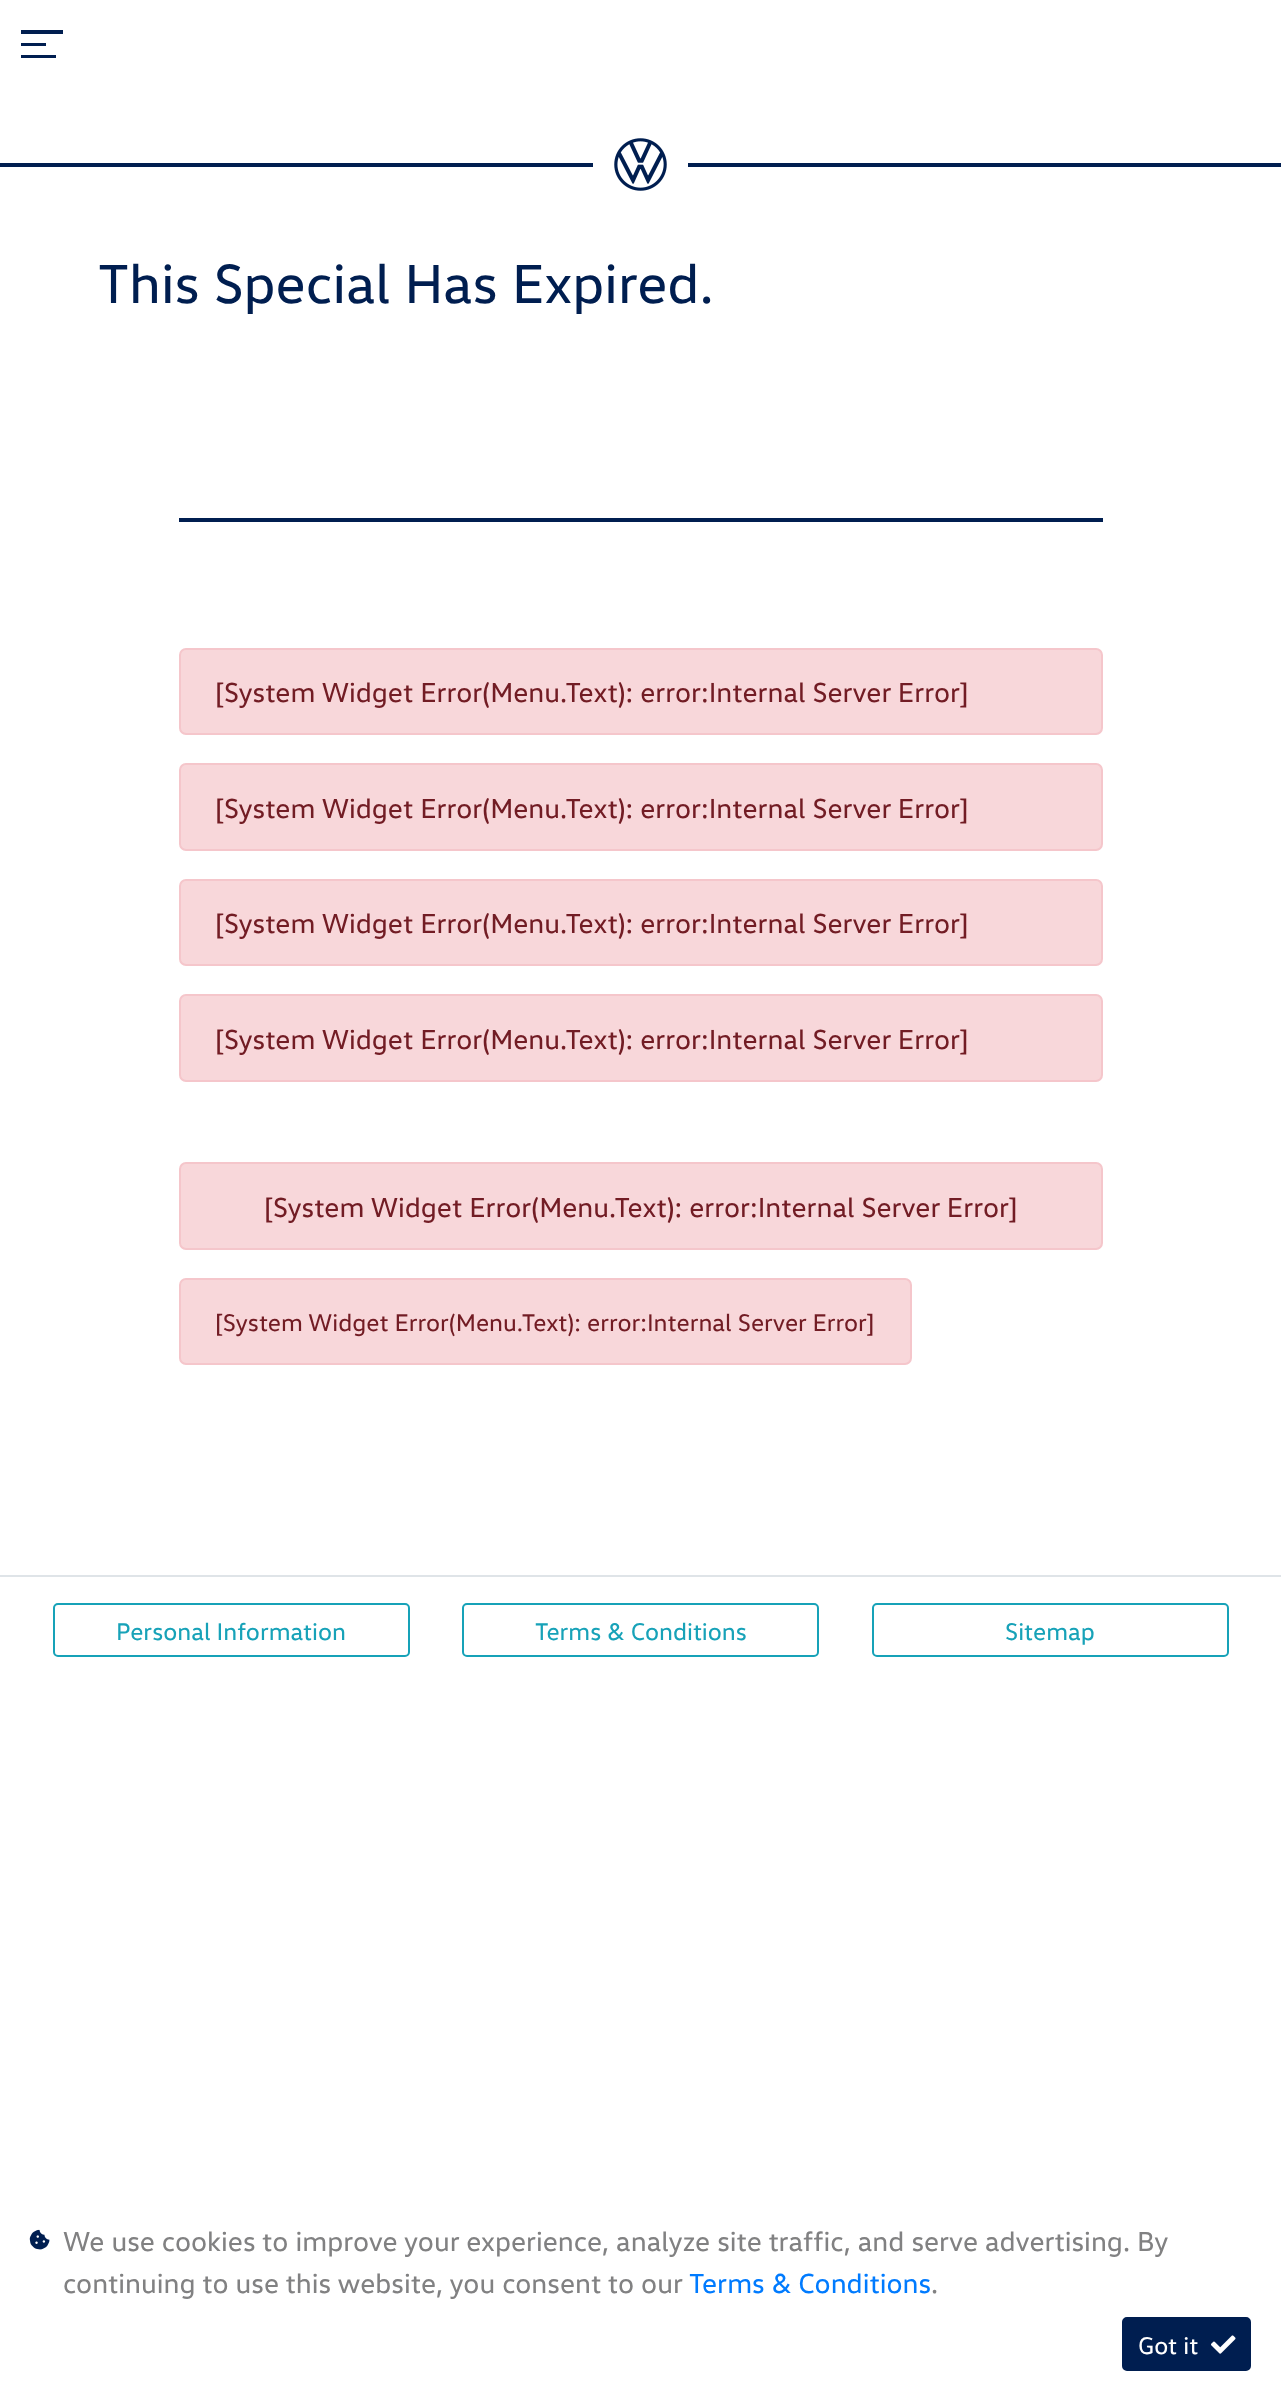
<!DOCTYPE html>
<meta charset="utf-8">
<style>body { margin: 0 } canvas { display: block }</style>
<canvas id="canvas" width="1281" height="2400"></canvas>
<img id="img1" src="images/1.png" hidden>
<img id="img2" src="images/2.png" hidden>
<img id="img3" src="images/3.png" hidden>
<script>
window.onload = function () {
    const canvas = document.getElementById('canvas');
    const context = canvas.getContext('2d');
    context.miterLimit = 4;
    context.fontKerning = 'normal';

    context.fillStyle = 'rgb(255, 255, 255)';
    context.fillRect(0, 0, 1281, 2400);
    context.fillStyle = 'rgb(0, 30, 80)';
    context.beginPath();
    context.moveTo(21, 30);
    context.lineTo(63, 30);
    context.lineTo(63, 34);
    context.lineTo(21, 34);
    context.closePath();
    context.moveTo(21, 43);
    context.lineTo(46, 43);
    context.lineTo(46, 46);
    context.lineTo(21, 46);
    context.closePath();
    context.moveTo(21, 55);
    context.lineTo(56, 55);
    context.lineTo(56, 58);
    context.lineTo(21, 58);
    context.closePath();
    context.fill();
    context.fillRect(0, 163, 593, 4);
    context.drawImage(document.getElementById('img1'), 614, 138, 53, 53);
    context.fillRect(688, 163, 593, 4);
    context.fillStyle = 'rgb(223, 228, 232)';
    context.fillRect(0, 1575, 1281, 2);
    context.fillStyle = 'rgb(0, 30, 80)';
    context.fillRect(179, 518, 924, 4);
    context.fillStyle = 'rgb(248, 215, 218)';
    context.beginPath();
    context.roundRect(180, 649, 922, 85, 6);
    context.fill();
    context.strokeStyle = 'rgb(245, 198, 203)';
    context.lineWidth = 2;
    context.stroke();
    context.beginPath();
    context.roundRect(180, 764, 922, 86, 6);
    context.fill();
    context.stroke();
    context.beginPath();
    context.roundRect(180, 880, 922, 85, 6);
    context.fill();
    context.stroke();
    context.beginPath();
    context.roundRect(180, 995, 922, 86, 6);
    context.fill();
    context.stroke();
    context.beginPath();
    context.roundRect(180, 1163, 922, 86, 6);
    context.fill();
    context.stroke();
    context.beginPath();
    context.roundRect(180, 1279, 731, 85, 6);
    context.fill();
    context.stroke();
    context.beginPath();
    context.roundRect(54, 1604, 355, 52, 4);
    context.strokeStyle = 'rgb(23, 162, 184)';
    context.stroke();
    context.beginPath();
    context.roundRect(463, 1604, 355, 52, 4);
    context.stroke();
    context.beginPath();
    context.roundRect(873, 1604, 355, 52, 4);
    context.stroke();
    context.drawImage(document.getElementById('img2'), 29, 2229, 21, 21);
    context.fillStyle = 'rgb(0, 30, 80)';
    context.beginPath();
    context.roundRect(1123, 2318, 127, 52, 4);
    context.fill();
    context.strokeStyle = 'rgb(0, 30, 80)';
    context.stroke();
    context.drawImage(document.getElementById('img3'), 1211, 2335, 25, 19);
    context.font = '56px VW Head';
    context.fillText('This Special Has Expired.', 98, 303);
    context.font = '28px VW Head';
    context.fillStyle = 'rgb(114, 28, 36)';
    context.fillText('[System Widget Error(Menu.Text): error:Internal Server Error]', 215, 702);
    context.fillText('[System Widget Error(Menu.Text): error:Internal Server Error]', 215, 818);
    context.fillText('[System Widget Error(Menu.Text): error:Internal Server Error]', 215, 933);
    context.fillText('[System Widget Error(Menu.Text): error:Internal Server Error]', 215, 1049);
    context.fillText('[System Widget Error(Menu.Text): error:Internal Server Error]', 264, 1217);
    context.font = '24.5px VW Head';
    context.fillText('[System Widget Error(Menu.Text): error:Internal Server Error]', 215, 1331);
    context.fillStyle = 'rgb(23, 162, 184)';
    context.fillText('Personal Information', 116, 1640);
    context.fillText('Terms & Conditions', 535, 1640);
    context.fillText('Sitemap', 1005, 1640);
    context.font = '28px VW Head';
    context.fillStyle = 'rgb(129, 129, 130)';
    context.fillText('We use cookies to improve your experience, analyze site traffic, and serve advertising. By', 63, 2251);
    context.fillText('continuing to use this website, you consent to our', 63, 2293);
    context.fillStyle = 'rgb(0, 123, 255)';
    context.fillText('Terms & Conditions', 689, 2293);
    context.fillStyle = 'rgb(129, 129, 130)';
    context.fillText('.', 931, 2293);
    context.font = '24.5px VW Head';
    context.fillStyle = 'rgb(255, 255, 255)';
    context.fillText('Got it', 1138, 2354);
};
</script>
